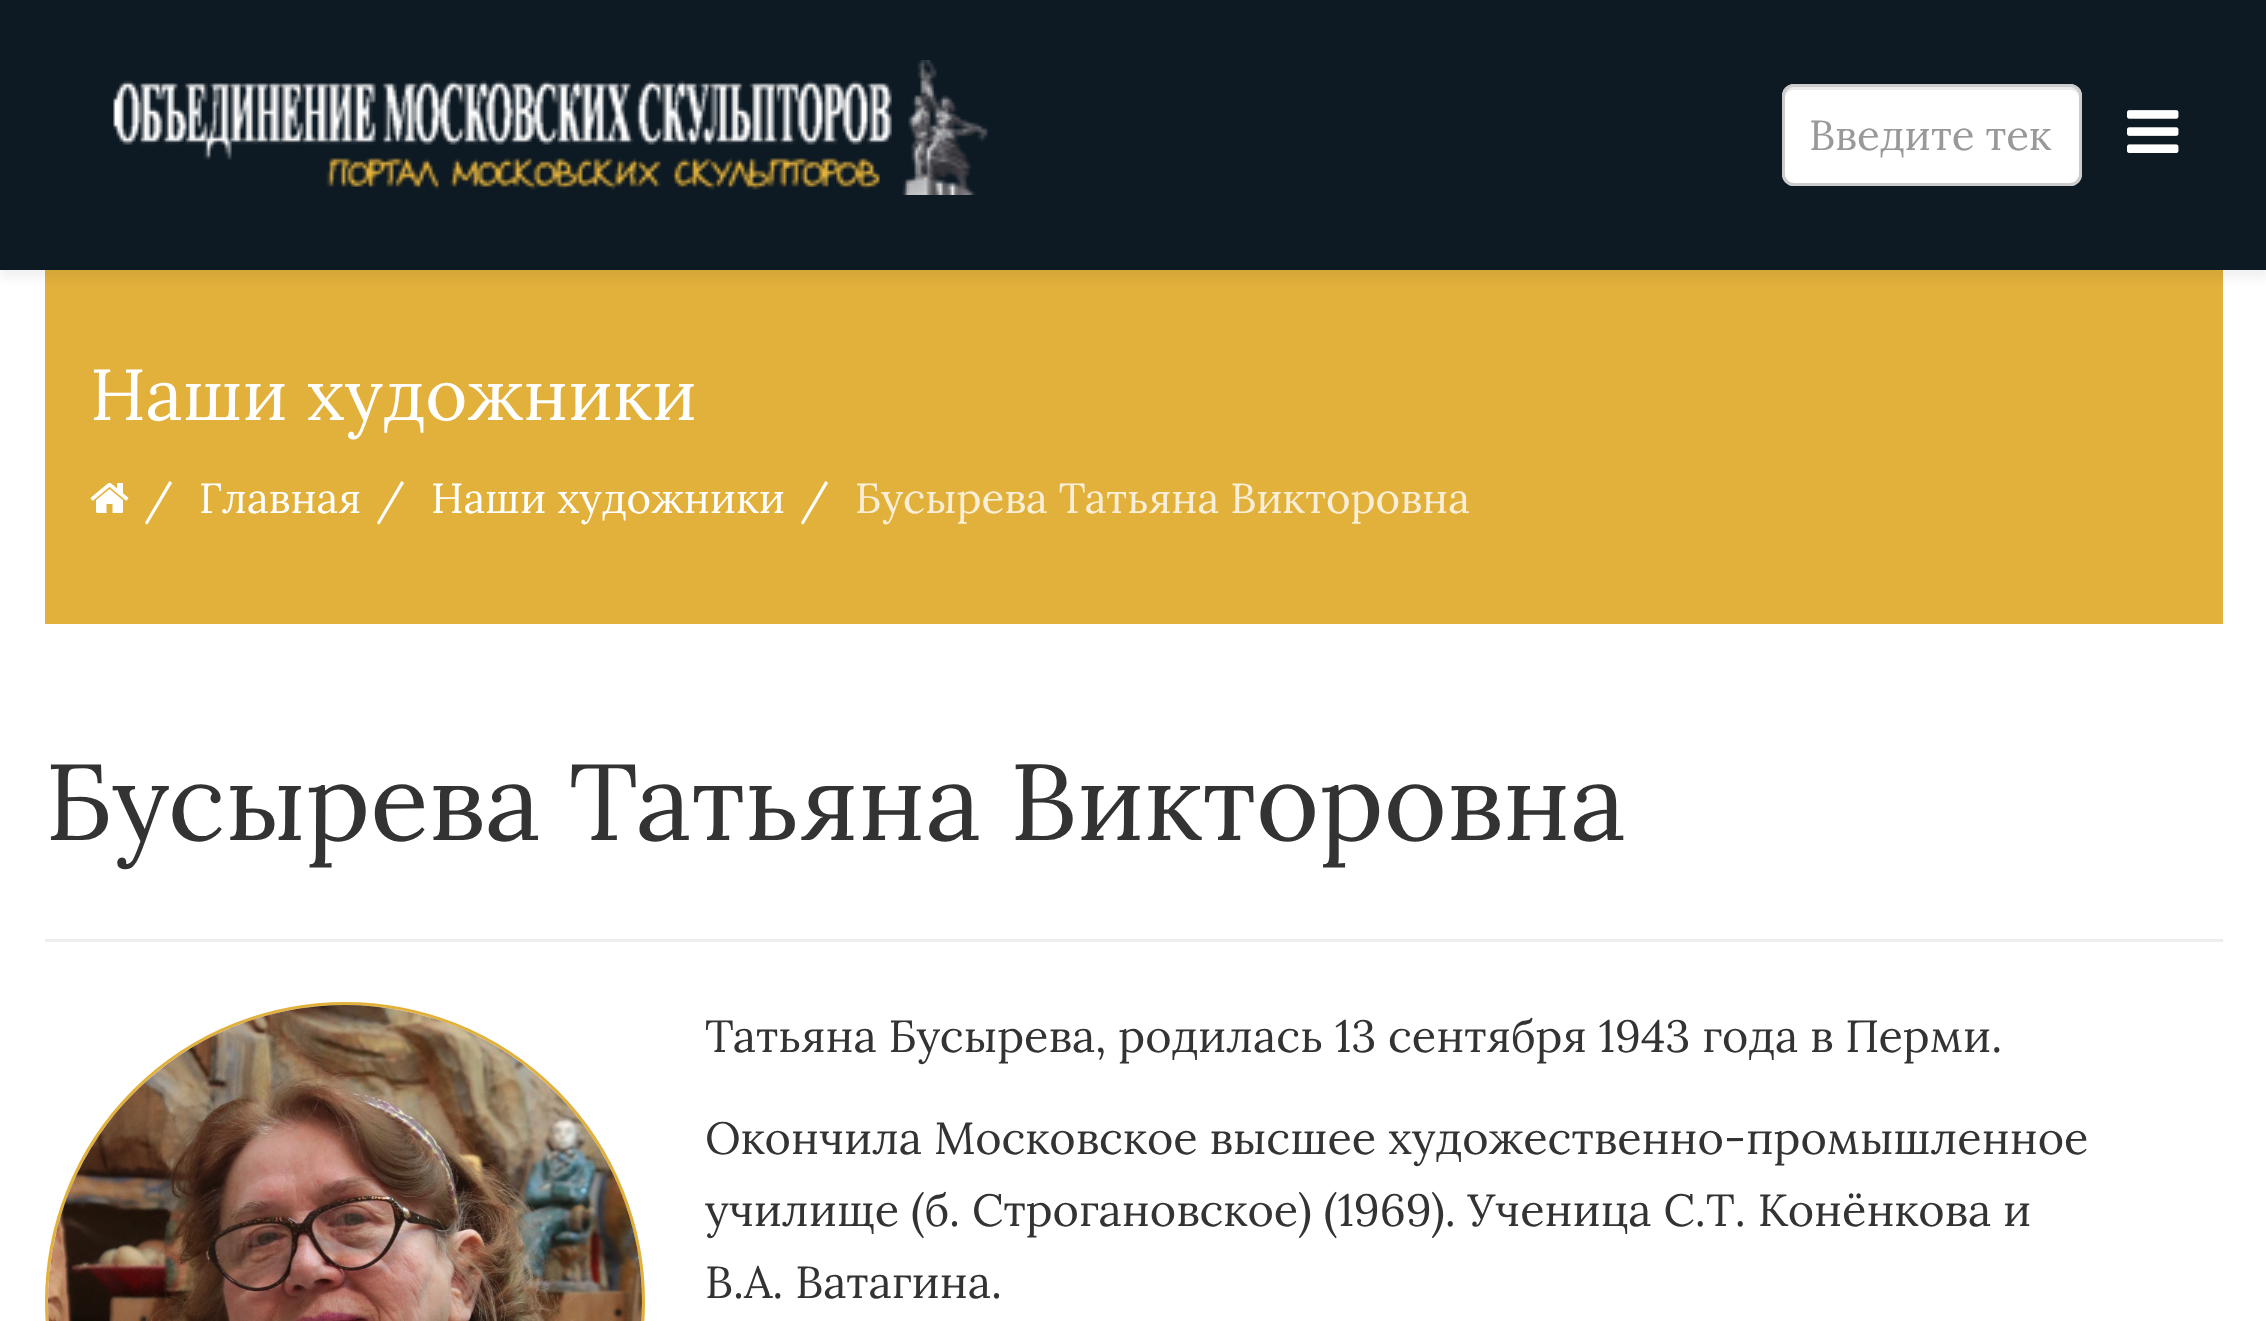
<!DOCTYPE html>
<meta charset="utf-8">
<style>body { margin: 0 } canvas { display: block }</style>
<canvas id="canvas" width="2266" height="1321"></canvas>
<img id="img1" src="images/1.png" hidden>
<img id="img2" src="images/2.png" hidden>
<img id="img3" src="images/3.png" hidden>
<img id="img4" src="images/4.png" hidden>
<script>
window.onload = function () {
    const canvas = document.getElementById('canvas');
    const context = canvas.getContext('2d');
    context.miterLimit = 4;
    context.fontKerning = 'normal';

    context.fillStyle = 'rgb(255, 255, 255)';
    context.fillRect(0, 0, 2266, 1321);
    context.fillStyle = 'rgb(226, 177, 60)';
    context.fillRect(45, 270, 2178, 354);
    context.fillStyle = 'rgba(0, 0, 0, 0.05)';
    context.filter = 'blur(4.5px)';
    context.beginPath();
    context.rect(0, 9, 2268, 270);
    context.fill();
    context.filter = 'none';
    context.fillStyle = 'rgb(13, 25, 35)';
    context.fillRect(0, 0, 2266, 270);
    context.drawImage(document.getElementById('img1'), 113, 60, 875, 135);
    context.fillStyle = 'rgb(255, 255, 255)';
    context.beginPath();
    context.roundRect(1782, 84, 300, 102, 12);
    context.fill();
    context.fillStyle = 'rgb(236, 236, 236)';
    context.beginPath();
    context.moveTo(1794, 90);
    context.lineTo(2070, 90);
    context.bezierCurveTo(2075, 90, 2079, 94, 2079, 99);
    context.lineTo(2079, 96);
    context.bezierCurveTo(2079, 91, 2075, 87, 2070, 87);
    context.lineTo(1794, 87);
    context.bezierCurveTo(1789, 87, 1785, 91, 1785, 96);
    context.lineTo(1785, 99);
    context.bezierCurveTo(1785, 94, 1789, 90, 1794, 90);
    context.closePath();
    context.fill();
    context.beginPath();
    context.roundRect(1783.5, 85.5, 297, 99, 10.5);
    context.strokeStyle = 'rgb(204, 204, 204)';
    context.lineWidth = 3;
    context.stroke();
    context.drawImage(document.getElementById('img2'), 2127, 110, 52, 43);
    context.drawImage(document.getElementById('img3'), 90, 482, 39, 31);
    context.fillStyle = 'rgb(238, 238, 238)';
    context.fillRect(45, 939, 2178, 3);
    context.beginPath();
    context.arc(345, 1302, 298.5, 0, 2 * Math.PI);
    context.strokeStyle = 'rgb(226, 177, 60)';
    context.stroke();
    context.drawImage(document.getElementById('img4'), 48, 1005, 594, 316);
    context.font = '42px Lora';
    context.fillStyle = 'rgb(153, 153, 153)';
    context.fillText('Введите тек', 1809, 150);
    context.font = '72px Lora';
    context.fillStyle = 'rgb(255, 255, 255)';
    context.fillText('Наши художники', 90, 420);
    context.font = '42px Lora';
    context.fillText('/', 144, 513);
    context.fillText('Главная', 199, 513);
    context.fillText('/', 376, 513);
    context.fillText('Наши художники', 431, 513);
    context.fillText('/', 800, 513);
    context.fillStyle = 'rgb(249, 239, 216)';
    context.fillText('Бусырева Татьяна Викторовна', 855, 513);
    context.font = '108px Lora';
    context.fillStyle = 'rgb(51, 51, 51)';
    context.fillText('Бусырева Татьяна Викторовна', 45, 840);
    context.font = '45px Lora';
    context.fillText('Татьяна Бусырева, родилась 13 сентября 1943 года в Перми.', 705, 1052);
    context.fillText('Окончила Московское высшее художественно-промышленное', 705, 1154);
    context.fillText('училище (б. Строгановское) (1969). Ученица С.Т. Конёнкова и', 705, 1226);
    context.fillText('В.А. Ватагина.', 705, 1298);
};
</script>
